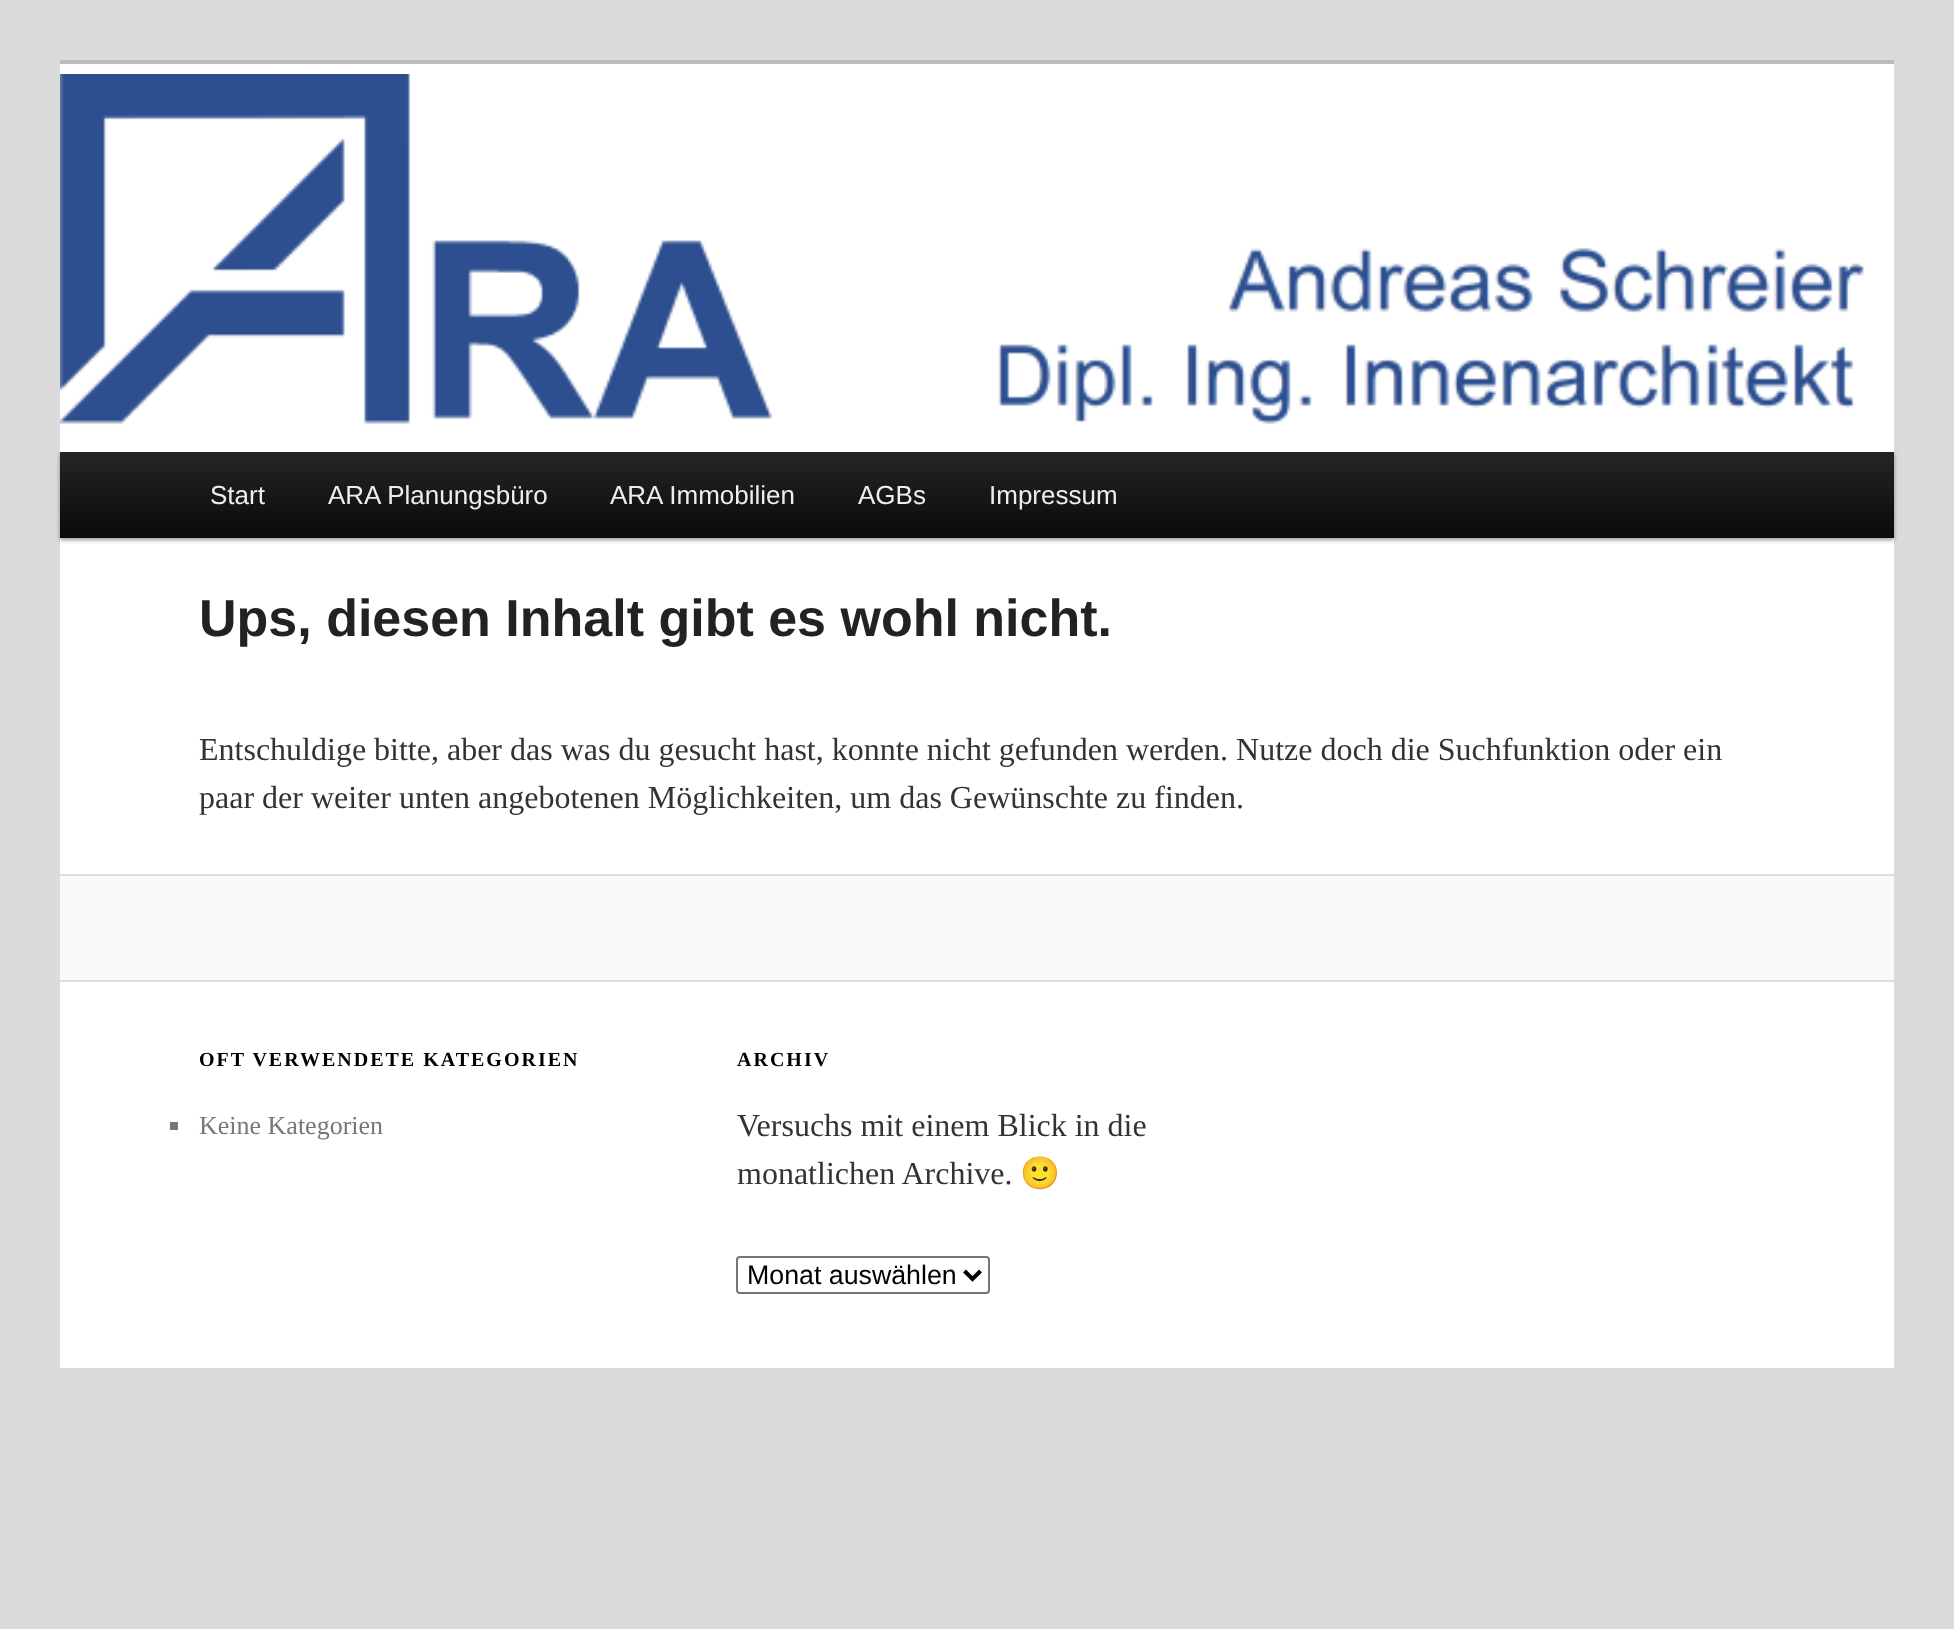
<!DOCTYPE html>
<meta charset="utf-8">
<style>body { margin: 0 } canvas { display: block }</style>
<canvas id="canvas" width="1954" height="1629"></canvas>
<img id="img1" src="images/1.png" hidden>
<script>
window.onload = function () {
    const canvas = document.getElementById('canvas');
    const context = canvas.getContext('2d');
    context.miterLimit = 4;
    context.fontKerning = 'normal';
    let gradient;

    context.fillStyle = 'rgb(219, 219, 219)';
    context.fillRect(0, 0, 1954, 1629);
    context.fillStyle = 'rgb(255, 255, 255)';
    context.fillRect(60, 64, 1834, 1304);
    context.fillStyle = 'rgb(187, 187, 187)';
    context.fillRect(60, 60, 1834, 4);
    context.fillStyle = 'rgba(0, 0, 0, 0.4)';
    context.filter = 'blur(2px)';
    context.beginPath();
    context.rect(60, 454, 1834, 86);
    context.fill();
    context.filter = 'none';
    context.drawImage(document.getElementById('img1'), 60, 74, 1834, 378);
    gradient = context.createLinearGradient(977, 452, 977, 538);
    gradient.addColorStop(0, 'rgb(37, 37, 37)');
    gradient.addColorStop(1, 'rgb(10, 10, 10)');
    context.fillStyle = gradient;
    context.fillRect(60, 452, 1834, 86);
    context.fillStyle = 'rgb(249, 249, 249)';
    context.fillRect(60, 876, 1834, 104);
    context.fillStyle = 'rgb(221, 221, 221)';
    context.fillRect(60, 874, 1834, 2);
    context.fillRect(60, 980, 1834, 2);
    context.fillStyle = 'rgb(119, 119, 119)';
    context.fillRect(170, 1122, 8, 8);
    context.beginPath();
    context.roundRect(737, 1257, 252, 36, 3);
    context.strokeStyle = 'rgb(118, 118, 118)';
    context.lineWidth = 2;
    context.stroke();
    context.beginPath();
    context.moveTo(964.5, 1271);
    context.lineTo(972.5, 1279);
    context.lineTo(980.5, 1271);
    context.strokeStyle = 'rgb(0, 0, 0)';
    context.lineWidth = 4;
    context.stroke();
    context.font = '26px Liberation Sans';
    context.fillStyle = 'rgb(238, 238, 238)';
    context.fillText('Start', 210, 504);
    context.fillText('ARA Planungsbüro', 328, 504);
    context.fillText('ARA Immobilien', 610, 504);
    context.fillText('AGBs', 858, 504);
    context.fillText('Impressum', 989, 504);
    context.font = 'bold 52px Liberation Sans';
    context.fillStyle = 'rgb(34, 34, 34)';
    context.fillText('Ups, diesen Inhalt gibt es wohl nicht.', 199, 636);
    context.font = '32px Liberation Serif';
    context.fillStyle = 'rgb(51, 51, 51)';
    context.fillText('Entschuldige bitte, aber das was du gesucht hast, konnte nicht gefunden werden. Nutze doch die Suchfunktion oder ein', 199, 760);
    context.fillText('paar der weiter unten angebotenen Möglichkeiten, um das Gewünschte zu finden.', 199, 808);
    context.letterSpacing = '2px';
    context.font = 'bold 20px Liberation Serif';
    context.fillStyle = 'rgb(0, 0, 0)';
    context.fillText('OFT VERWENDETE KATEGORIEN', 199, 1066);
    context.letterSpacing = '0px';
    context.font = '26px Liberation Serif';
    context.fillStyle = 'rgb(119, 119, 119)';
    context.fillText('Keine Kategorien', 199, 1134);
    context.letterSpacing = '2px';
    context.font = 'bold 20px Liberation Serif';
    context.fillStyle = 'rgb(0, 0, 0)';
    context.fillText('ARCHIV', 737, 1066);
    context.letterSpacing = '0px';
    context.font = '32px Liberation Serif';
    context.fillStyle = 'rgb(51, 51, 51)';
    context.fillText('Versuchs mit einem Blick in die', 737, 1136);
    context.fillText('monatlichen Archive.', 737, 1184);
    context.font = '32px Noto Color Emoji';
    context.fillText('🙂', 1020, 1184);
    context.font = '26.75px Liberation Sans';
    context.fillStyle = 'rgb(0, 0, 0)';
    context.fillText('Monat auswählen', 747, 1284);
};
</script>
